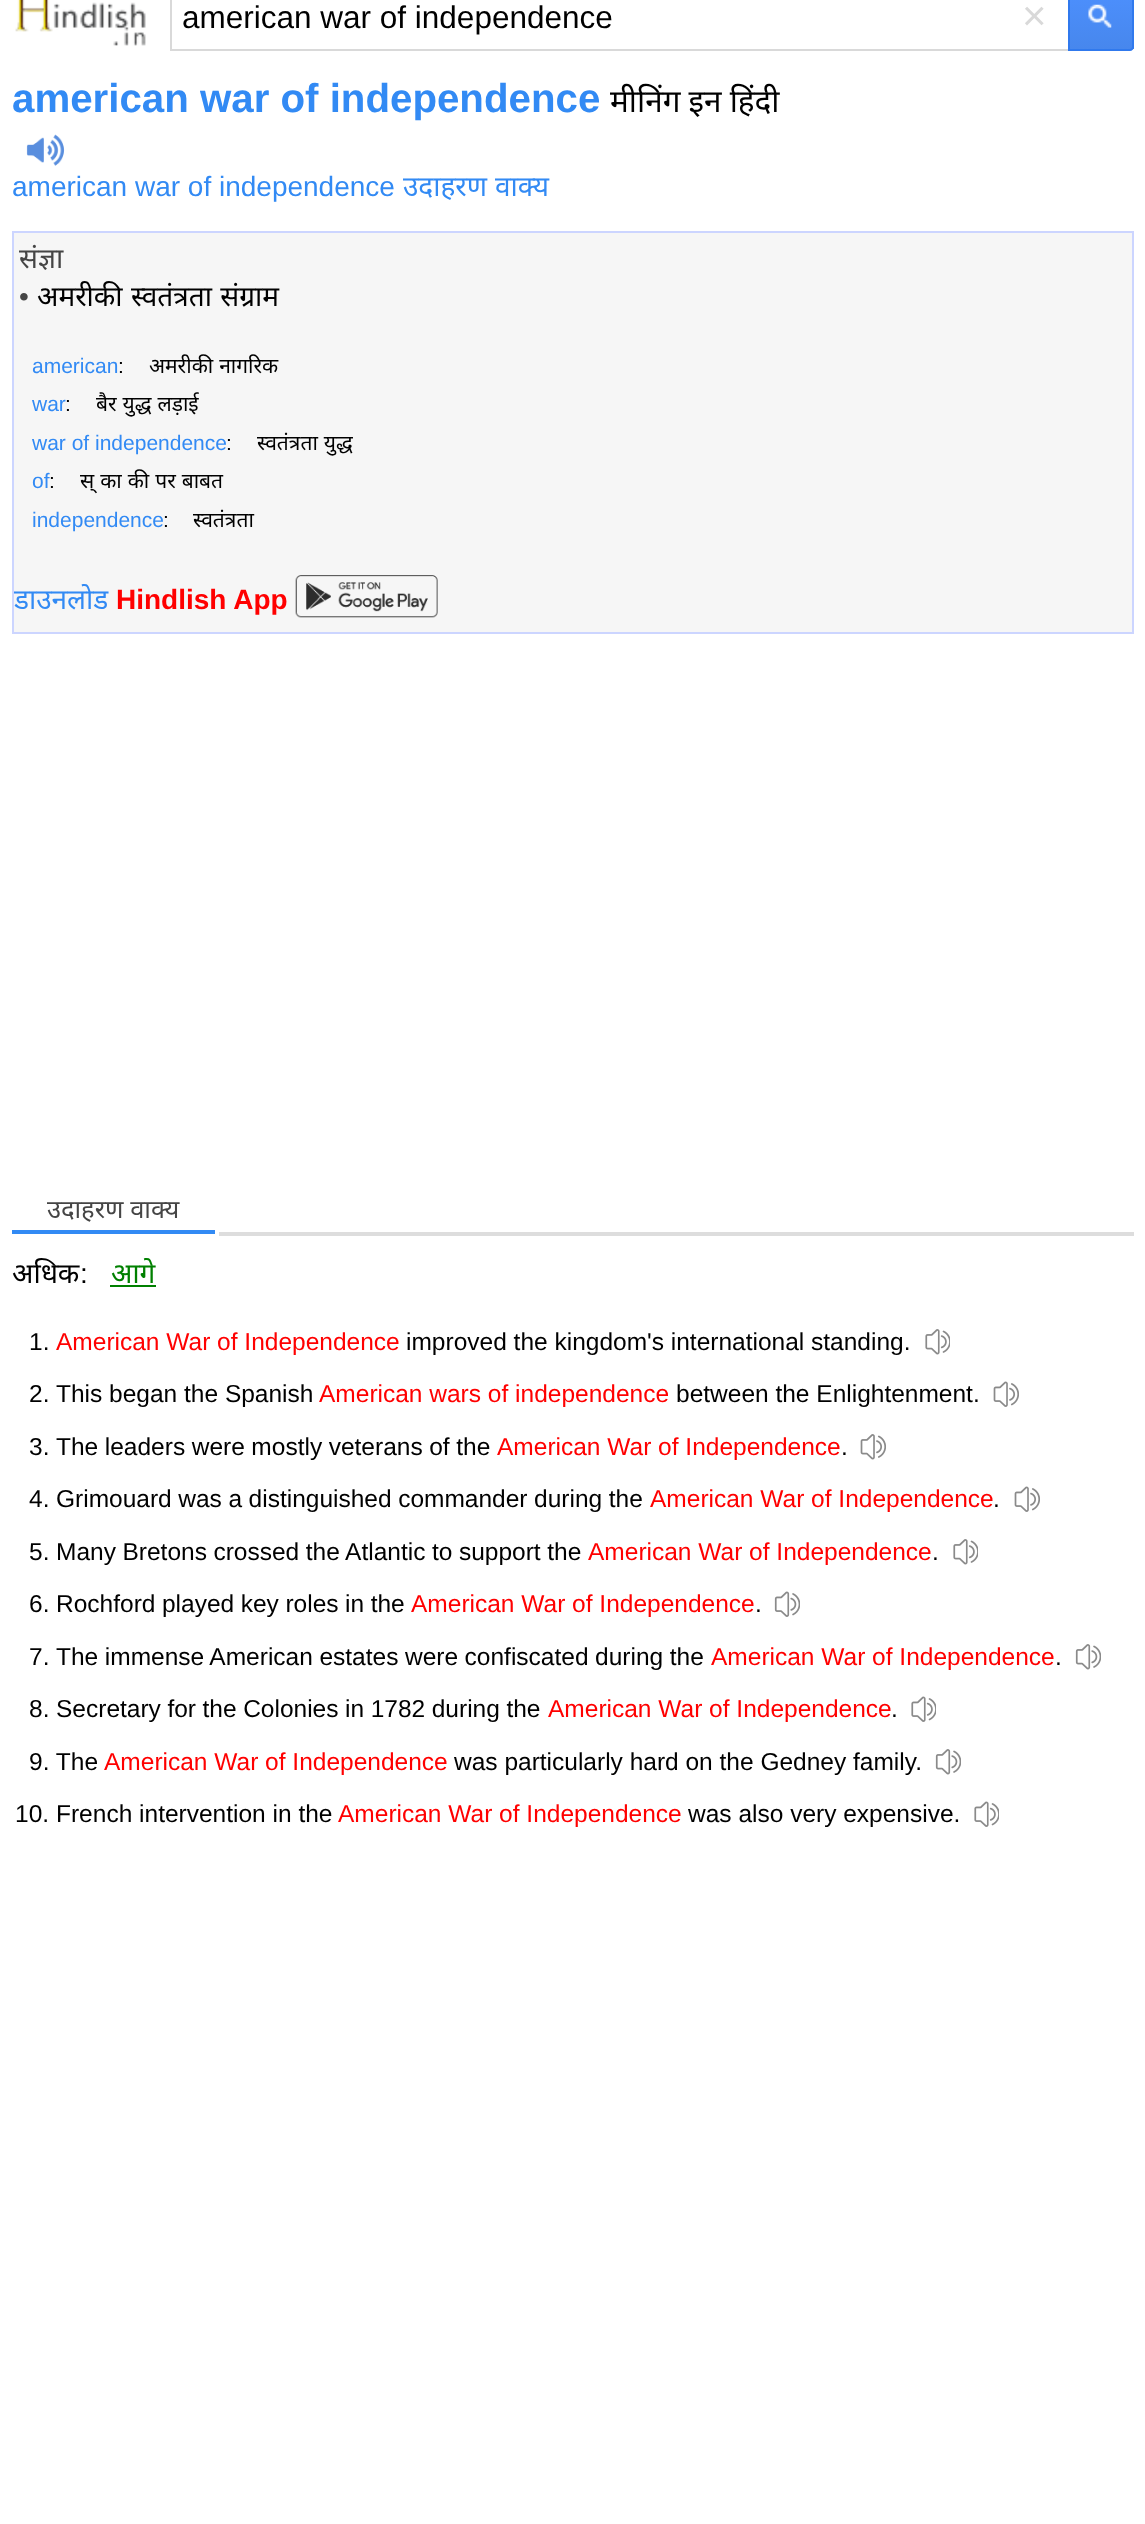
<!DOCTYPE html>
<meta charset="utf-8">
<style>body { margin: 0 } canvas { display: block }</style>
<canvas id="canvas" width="1145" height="2524"></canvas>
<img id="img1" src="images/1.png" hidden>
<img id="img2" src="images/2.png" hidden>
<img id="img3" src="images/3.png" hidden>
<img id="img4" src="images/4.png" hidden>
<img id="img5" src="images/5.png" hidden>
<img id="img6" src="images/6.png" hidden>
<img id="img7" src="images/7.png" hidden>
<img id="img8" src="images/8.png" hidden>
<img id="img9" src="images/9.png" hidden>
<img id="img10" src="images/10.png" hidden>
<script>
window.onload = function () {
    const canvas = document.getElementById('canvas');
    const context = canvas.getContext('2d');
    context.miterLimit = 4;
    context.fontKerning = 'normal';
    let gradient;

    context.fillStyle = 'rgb(255, 255, 255)';
    context.fillRect(0, 0, 1145, 2524);
    context.drawImage(document.getElementById('img1'), 15, 0, 131, 46);
    context.fillStyle = 'rgb(217, 217, 217)';
    context.fillRect(170, 49, 898, 2);
    context.fillRect(170, 0, 2, 51);
    gradient = context.createLinearGradient(1069, -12, 1069, 49);
    gradient.addColorStop(0, 'rgb(77, 144, 254)');
    gradient.addColorStop(1, 'rgb(71, 135, 237)');
    context.fillStyle = gradient;
    context.fillRect(1070, 0, 64, 49);
    context.beginPath();
    context.moveTo(1069, -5);
    context.lineTo(1130, -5);
    context.bezierCurveTo(1131.5, -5, 1133, -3.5, 1133, -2);
    context.lineTo(1133, 47);
    context.bezierCurveTo(1133, 48.5, 1131.5, 50, 1130, 50);
    context.lineTo(1069, 50);
    context.closePath();
    context.strokeStyle = 'rgb(48, 121, 237)';
    context.lineWidth = 2;
    context.stroke();
    context.drawImage(document.getElementById('img2'), 1088, 4, 24, 24);
    context.drawImage(document.getElementById('img3'), 26, 134, 39, 32);
    context.fillStyle = 'rgb(246, 246, 246)';
    context.beginPath();
    context.rect(13, 232, 1120, 401);
    context.fill();
    context.strokeStyle = 'rgb(204, 213, 255)';
    context.stroke();
    context.drawImage(document.getElementById('img4'), 295, 575, 143, 43);
    context.fillStyle = 'rgb(221, 221, 221)';
    context.fillRect(219, 1232, 915, 4);
    context.fillStyle = 'rgb(50, 138, 244)';
    context.fillRect(12, 1230, 203, 4);
    context.fillStyle = 'rgb(0, 128, 0)';
    context.fillRect(110, 1285, 46, 2);
    context.drawImage(document.getElementById('img5'), 925, 1329, 25, 26);
    context.drawImage(document.getElementById('img6'), 993, 1381, 26, 26);
    context.drawImage(document.getElementById('img7'), 860, 1434, 26, 26);
    context.drawImage(document.getElementById('img6'), 1014, 1486, 26, 26);
    context.drawImage(document.getElementById('img5'), 953, 1539, 25, 26);
    context.drawImage(document.getElementById('img8'), 774, 1591, 26, 26);
    context.drawImage(document.getElementById('img9'), 1075, 1644, 26, 26);
    context.drawImage(document.getElementById('img10'), 911, 1696, 25, 26);
    context.drawImage(document.getElementById('img9'), 935, 1749, 26, 26);
    context.drawImage(document.getElementById('img10'), 974, 1801, 25, 26);
    context.font = '31.5px Liberation Sans';
    context.fillStyle = 'rgb(0, 0, 0)';
    context.fillText('american war of independence', 182, 28);
    context.font = '42px Liberation Sans';
    context.fillStyle = 'rgb(217, 217, 217)';
    context.fillText('×', 1022, 30);
    context.font = 'bold 40.25px Liberation Sans';
    context.fillStyle = 'rgb(50, 138, 244)';
    context.fillText('american war of independence', 12, 112);
    context.font = '31.5px Noto Sans';
    context.fillStyle = 'rgb(0, 0, 0)';
    context.fillText('मीनिंग इन हिंदी', 610, 112);
    context.font = '28px Liberation Sans';
    context.fillStyle = 'rgb(50, 138, 244)';
    context.fillText('american war of independence', 12, 196);
    context.font = '28px Noto Sans';
    context.fillText('उदाहरण', 403, 196);
    context.fillText('वाक्य', 495, 196);
    context.fillStyle = 'rgb(69, 69, 69)';
    context.fillText('संज्ञा', 19, 268);
    context.font = '28px Liberation Sans';
    context.fillText('•', 19, 306);
    context.wordSpacing = '1px';
    context.font = '28px Noto Sans';
    context.fillStyle = 'rgb(0, 0, 0)';
    context.fillText('अमरीकी स्वतंत्रता संग्राम', 37, 306);
    context.wordSpacing = '0px';
    context.font = '21px Liberation Sans';
    context.fillStyle = 'rgb(50, 138, 244)';
    context.fillText('american', 32, 373);
    context.fillStyle = 'rgb(0, 0, 0)';
    context.fillText(':', 118, 373);
    context.wordSpacing = '0.5px';
    context.font = '21px Noto Sans';
    context.fillText('अमरीकी नागरिक', 149, 373);
    context.wordSpacing = '0px';
    context.font = '21px Liberation Sans';
    context.fillStyle = 'rgb(50, 138, 244)';
    context.fillText('war', 32, 411);
    context.fillStyle = 'rgb(0, 0, 0)';
    context.fillText(':', 65, 411);
    context.wordSpacing = '0.5px';
    context.font = '21px Noto Sans';
    context.fillText('बैर युद्ध लड़ाई', 96, 411);
    context.wordSpacing = '0px';
    context.font = '21px Liberation Sans';
    context.fillStyle = 'rgb(50, 138, 244)';
    context.fillText('war of independence', 32, 450);
    context.fillStyle = 'rgb(0, 0, 0)';
    context.fillText(':', 226, 450);
    context.wordSpacing = '0.5px';
    context.font = '21px Noto Sans';
    context.fillText('स्वतंत्रता युद्ध', 257, 450);
    context.wordSpacing = '0px';
    context.font = '21px Liberation Sans';
    context.fillStyle = 'rgb(50, 138, 244)';
    context.fillText('of', 32, 488);
    context.fillStyle = 'rgb(0, 0, 0)';
    context.fillText(':', 49, 488);
    context.wordSpacing = '0.5px';
    context.font = '21px Noto Sans';
    context.fillText('स् का की पर बाबत', 80, 488);
    context.wordSpacing = '0px';
    context.font = '21px Liberation Sans';
    context.fillStyle = 'rgb(50, 138, 244)';
    context.fillText('independence', 32, 527);
    context.fillStyle = 'rgb(0, 0, 0)';
    context.fillText(':', 163, 527);
    context.font = '21px Noto Sans';
    context.fillText('स्वतंत्रता', 193, 527);
    context.save();
    context.beginPath();
    context.rect(14, 233, 1118, 399);
    context.clip();
    context.font = '28px Noto Sans';
    context.fillStyle = 'rgb(50, 138, 244)';
    context.fillText('डाउनलोड', 14, 609);
    context.restore();
    context.font = 'bold 28px Liberation Sans';
    context.fillStyle = 'rgb(255, 0, 0)';
    context.fillText('Hindlish App', 116, 609);
    context.font = '25.5px Noto Sans';
    context.fillStyle = 'rgb(69, 69, 69)';
    context.fillText('उदाहरण वाक्य', 47, 1218);
    context.font = '28px Noto Sans';
    context.fillStyle = 'rgb(0, 0, 0)';
    context.fillText('अधिक', 12, 1283);
    context.font = '28px Liberation Sans';
    context.fillText(':', 80, 1283);
    context.font = '28px Noto Sans';
    context.fillStyle = 'rgb(0, 128, 0)';
    context.fillText('आगे', 111, 1283);
    context.font = '24.5px Liberation Sans';
    context.fillStyle = 'rgb(0, 0, 0)';
    context.fillText('1.', 29, 1350);
    context.fillStyle = 'rgb(255, 0, 0)';
    context.fillText('American War of Independence', 56, 1350);
    context.fillStyle = 'rgb(0, 0, 0)';
    context.fillText('improved the kingdom\'s international standing.', 406, 1350);
    context.fillText('2.', 29, 1402);
    context.fillText('This began the Spanish', 56, 1402);
    context.fillStyle = 'rgb(255, 0, 0)';
    context.fillText('American wars of independence', 319, 1402);
    context.fillStyle = 'rgb(0, 0, 0)';
    context.fillText('between the Enlightenment.', 676, 1402);
    context.fillText('3.', 29, 1455);
    context.wordSpacing = '-0.25px';
    context.fillText('The leaders were mostly veterans of the', 56, 1455);
    context.wordSpacing = '0px';
    context.fillStyle = 'rgb(255, 0, 0)';
    context.fillText('American War of Independence', 497, 1455);
    context.fillStyle = 'rgb(0, 0, 0)';
    context.fillText('.', 841, 1455);
    context.fillText('4.', 29, 1507);
    context.wordSpacing = '-0.25px';
    context.fillText('Grimouard was a distinguished commander during the', 56, 1507);
    context.wordSpacing = '0px';
    context.fillStyle = 'rgb(255, 0, 0)';
    context.fillText('American War of Independence', 650, 1507);
    context.fillStyle = 'rgb(0, 0, 0)';
    context.fillText('.', 993, 1507);
    context.fillText('5.', 29, 1560);
    context.wordSpacing = '-0.25px';
    context.fillText('Many Bretons crossed the Atlantic to support the', 56, 1560);
    context.wordSpacing = '0px';
    context.fillStyle = 'rgb(255, 0, 0)';
    context.fillText('American War of Independence', 588, 1560);
    context.fillStyle = 'rgb(0, 0, 0)';
    context.fillText('.', 932, 1560);
    context.fillText('6.', 29, 1612);
    context.wordSpacing = '-0.25px';
    context.fillText('Rochford played key roles in the', 56, 1612);
    context.wordSpacing = '0px';
    context.fillStyle = 'rgb(255, 0, 0)';
    context.fillText('American War of Independence', 411, 1612);
    context.fillStyle = 'rgb(0, 0, 0)';
    context.fillText('.', 755, 1612);
    context.fillText('7.', 29, 1665);
    context.wordSpacing = '-0.25px';
    context.fillText('The immense American estates were confiscated during the', 56, 1665);
    context.wordSpacing = '0px';
    context.fillStyle = 'rgb(255, 0, 0)';
    context.fillText('American War of Independence', 711, 1665);
    context.fillStyle = 'rgb(0, 0, 0)';
    context.fillText('.', 1055, 1665);
    context.fillText('8.', 29, 1717);
    context.wordSpacing = '-0.25px';
    context.fillText('Secretary for the Colonies in 1782 during the', 56, 1717);
    context.wordSpacing = '0px';
    context.fillStyle = 'rgb(255, 0, 0)';
    context.fillText('American War of Independence', 548, 1717);
    context.fillStyle = 'rgb(0, 0, 0)';
    context.fillText('.', 891, 1717);
    context.fillText('9. The', 29, 1770);
    context.fillStyle = 'rgb(255, 0, 0)';
    context.fillText('American War of Independence', 104, 1770);
    context.fillStyle = 'rgb(0, 0, 0)';
    context.fillText('was particularly hard on the Gedney family.', 454, 1770);
    context.fillText('10.', 15, 1822);
    context.fillText('French intervention in the', 56, 1822);
    context.fillStyle = 'rgb(255, 0, 0)';
    context.fillText('American War of Independence', 338, 1822);
    context.fillStyle = 'rgb(0, 0, 0)';
    context.fillText('was also very expensive.', 688, 1822);
};
</script>
